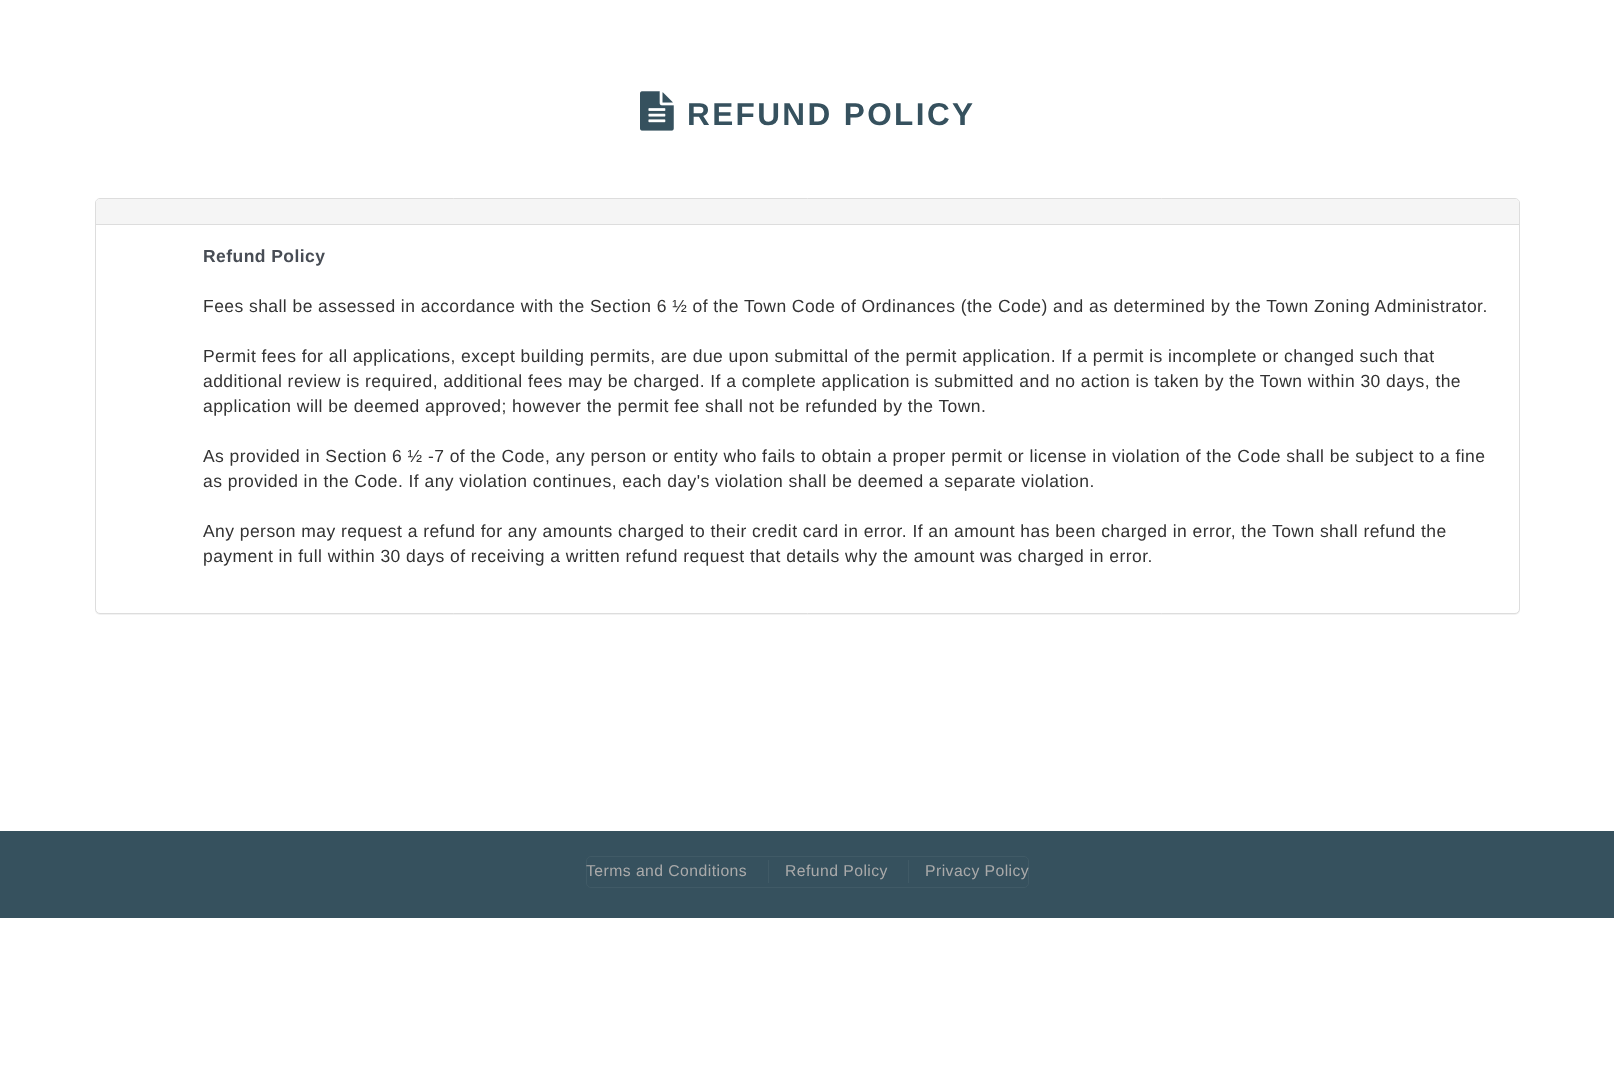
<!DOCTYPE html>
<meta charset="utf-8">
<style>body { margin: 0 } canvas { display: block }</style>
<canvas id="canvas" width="1614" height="1089"></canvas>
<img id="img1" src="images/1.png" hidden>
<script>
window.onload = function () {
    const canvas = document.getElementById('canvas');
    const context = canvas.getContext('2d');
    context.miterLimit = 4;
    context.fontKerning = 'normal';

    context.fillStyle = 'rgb(255, 255, 255)';
    context.fillRect(0, 0, 1614, 1089);
    context.drawImage(document.getElementById('img1'), 640, 91, 34, 40);
    context.fillStyle = 'rgba(0, 0, 0, 0.05)';
    context.filter = 'blur(0.5px)';
    context.beginPath();
    context.roundRect(95, 199, 1425, 416, 5);
    context.fill();
    context.filter = 'none';
    context.fillStyle = 'rgb(255, 255, 255)';
    context.beginPath();
    context.roundRect(95.5, 198.5, 1424, 415, 4.5);
    context.fill();
    context.strokeStyle = 'rgb(221, 221, 221)';
    context.stroke();
    context.fillStyle = 'rgb(245, 245, 245)';
    context.beginPath();
    context.roundRect(96, 199, 1423, 26, [4, 4, 0, 0]);
    context.fill();
    context.fillStyle = 'rgb(221, 221, 221)';
    context.fillRect(96, 224, 1423, 1);
    context.fillStyle = 'rgb(54, 81, 94)';
    context.fillRect(0, 831, 1614, 87);
    context.beginPath();
    context.roundRect(586.5, 856.5, 442, 31, 4.5);
    context.strokeStyle = 'rgb(64, 90, 102)';
    context.stroke();
    context.fillStyle = 'rgb(64, 90, 102)';
    context.fillRect(768, 860, 1, 23);
    context.fillRect(908, 860, 1, 23);
    context.letterSpacing = '2.4px';
    context.font = 'bold 31.5px Liberation Sans';
    context.fillStyle = 'rgb(54, 81, 94)';
    context.fillText('REFUND POLICY', 687, 125);
    context.letterSpacing = '0.44px';
    context.font = 'bold 17.5px Liberation Sans';
    context.fillStyle = 'rgb(72, 77, 85)';
    context.fillText('Refund Policy', 203, 262);
    context.font = '17.5px Liberation Sans';
    context.fillStyle = 'rgb(51, 51, 51)';
    context.fillText('Fees shall be assessed in accordance with the Section 6 ½ of the Town Code of Ordinances (the Code) and as determined by the Town Zoning Administrator.', 203, 312);
    context.fillText('Permit fees for all applications, except building permits, are due upon submittal of the permit application. If a permit is incomplete or changed such that', 203, 362);
    context.fillText('additional review is required, additional fees may be charged. If a complete application is submitted and no action is taken by the Town within 30 days, the', 203, 387);
    context.fillText('application will be deemed approved; however the permit fee shall not be refunded by the Town.', 203, 412);
    context.fillText('As provided in Section 6 ½ -7 of the Code, any person or entity who fails to obtain a proper permit or license in violation of the Code shall be subject to a fine', 203, 462);
    context.fillText('as provided in the Code. If any violation continues, each day\'s violation shall be deemed a separate violation.', 203, 487);
    context.fillText('Any person may request a refund for any amounts charged to their credit card in error. If an amount has been charged in error, the Town shall refund the', 203, 537);
    context.fillText('payment in full within 30 days of receiving a written refund request that details why the amount was charged in error.', 203, 562);
    context.font = '15.75px Liberation Sans';
    context.fillStyle = 'rgb(170, 170, 170)';
    context.fillText('Terms and Conditions', 586, 876);
    context.fillText('Refund Policy', 785, 876);
    context.fillText('Privacy Policy', 925, 876);
};
</script>
